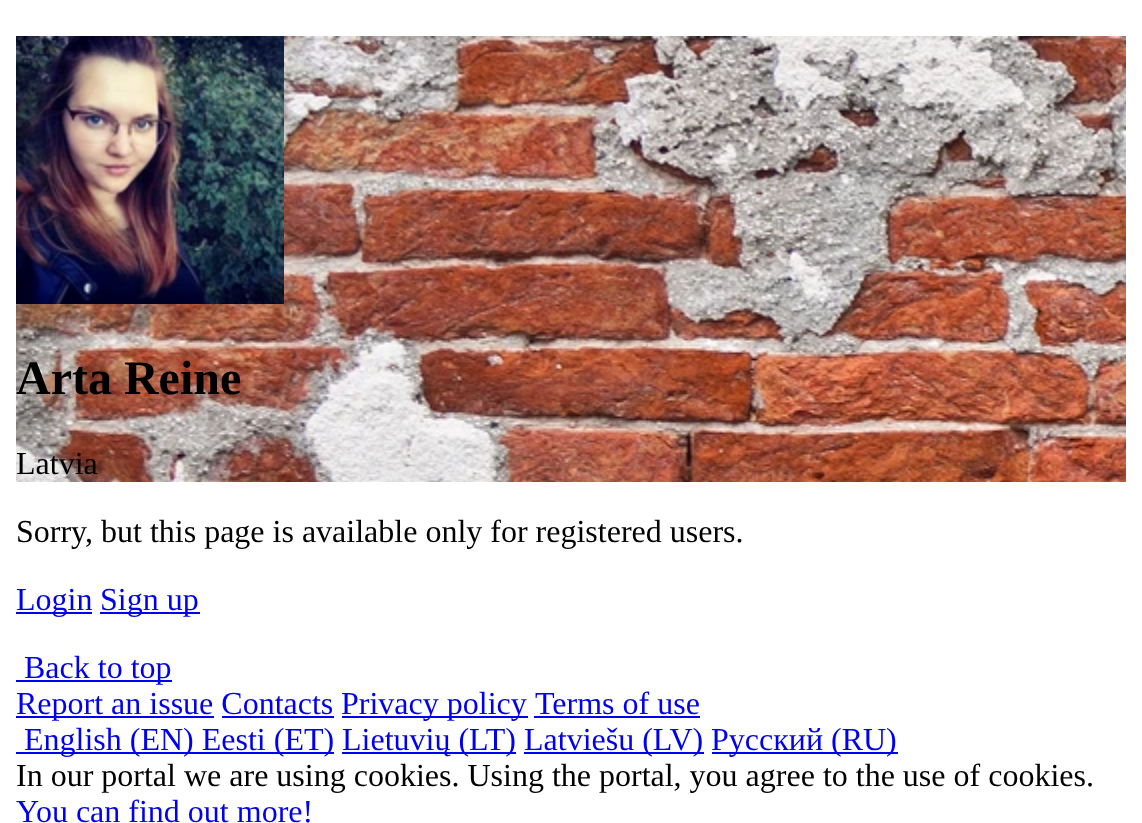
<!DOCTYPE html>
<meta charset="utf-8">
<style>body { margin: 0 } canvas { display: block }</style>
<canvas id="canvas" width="1142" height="823"></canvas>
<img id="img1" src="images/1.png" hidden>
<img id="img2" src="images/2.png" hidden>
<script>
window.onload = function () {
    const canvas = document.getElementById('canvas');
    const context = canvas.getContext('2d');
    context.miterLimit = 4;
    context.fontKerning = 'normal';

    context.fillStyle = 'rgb(255, 255, 255)';
    context.fillRect(0, 0, 1142, 823);
    context.drawImage(document.getElementById('img1'), 16, 36, 1110, 446);
    context.drawImage(document.getElementById('img2'), 16, 36, 268, 268);
    context.fillStyle = 'rgb(0, 0, 238)';
    context.fillRect(16, 612, 76, 2);
    context.fillRect(100, 612, 100, 2);
    context.fillRect(16, 680, 156, 2);
    context.fillRect(16, 716, 198, 2);
    context.fillRect(342, 716, 186, 2);
    context.fillRect(534, 716, 166, 2);
    context.fillRect(222, 716, 112, 2);
    context.fillRect(16, 752, 318, 2);
    context.fillRect(342, 752, 174, 2);
    context.fillRect(524, 752, 180, 2);
    context.fillRect(712, 752, 186, 2);
    context.font = 'bold 48px Liberation Serif';
    context.fillStyle = 'rgb(0, 0, 0)';
    context.fillText('Arta Reine', 16, 394);
    context.font = '32px Liberation Serif';
    context.fillText('Latvia', 16, 474);
    context.fillText('Sorry, but this page is available only for registered users.', 16, 542);
    context.fillStyle = 'rgb(0, 0, 238)';
    context.fillText('Login', 16, 610);
    context.fillText('Sign up', 100, 610);
    context.fillText('Back to top', 24, 678);
    context.fillText('Report an issue Contacts', 16, 714);
    context.fillText('Privacy policy', 341, 714);
    context.fillText('Terms of use', 535, 714);
    context.fillText('English (EN) Eesti (ET)', 24, 750);
    context.fillText('Lietuvių (LT)', 342, 750);
    context.fillText('Latviešu (LV)', 524, 750);
    context.fillText('Русский (RU)', 711, 750);
    context.fillStyle = 'rgb(0, 0, 0)';
    context.fillText('In our portal we are using cookies. Using the portal, you agree to the use of cookies.', 16, 786);
    context.fillStyle = 'rgb(0, 0, 238)';
    context.fillText('You can find out more!', 16, 822);
};
</script>
